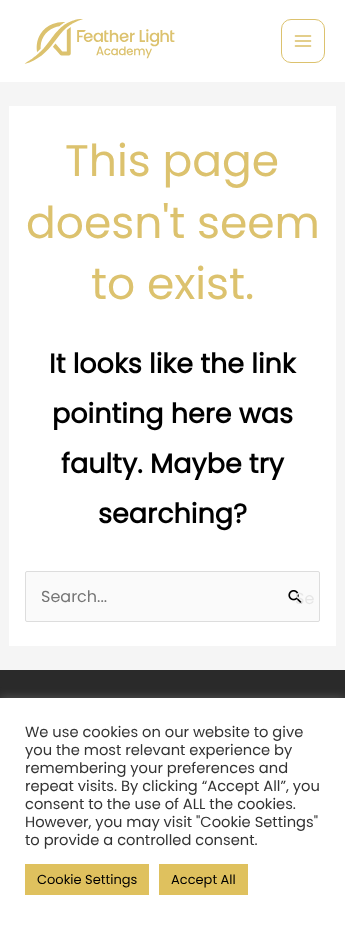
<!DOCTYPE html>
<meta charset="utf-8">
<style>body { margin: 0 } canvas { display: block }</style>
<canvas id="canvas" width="345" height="925"></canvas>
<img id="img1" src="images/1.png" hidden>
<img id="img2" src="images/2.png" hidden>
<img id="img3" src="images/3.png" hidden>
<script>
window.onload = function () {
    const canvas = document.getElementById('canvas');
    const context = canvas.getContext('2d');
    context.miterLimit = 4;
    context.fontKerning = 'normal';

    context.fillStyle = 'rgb(245, 245, 245)';
    context.fillRect(0, 0, 345, 925);
    context.fillStyle = 'rgb(255, 255, 255)';
    context.fillRect(0, 0, 345, 82);
    context.drawImage(document.getElementById('img1'), 24, 19, 151, 45);
    context.beginPath();
    context.roundRect(281.5, 19.5, 43, 43, 9.5);
    context.strokeStyle = 'rgb(220, 194, 110)';
    context.stroke();
    context.drawImage(document.getElementById('img2'), 294, 35, 18, 12);
    context.fillRect(9, 106, 327, 540);
    context.fillStyle = 'rgb(250, 250, 250)';
    context.beginPath();
    context.roundRect(25.5, 571.5, 294, 50, 1.5);
    context.fill();
    context.strokeStyle = 'rgb(221, 221, 221)';
    context.stroke();
    context.drawImage(document.getElementById('img3'), 288, 590, 15, 14);
    context.fillStyle = 'rgb(42, 42, 42)';
    context.fillRect(0, 670, 345, 28);
    context.fillStyle = 'rgba(172, 171, 171, 0.3)';
    context.filter = 'blur(5px)';
    context.beginPath();
    context.rect(0, 697, 345, 227);
    context.fill();
    context.filter = 'none';
    context.fillStyle = 'rgb(255, 255, 255)';
    context.fillRect(0, 698, 345, 227);
    context.fillStyle = 'rgb(223, 193, 94)';
    context.fillRect(25, 864, 124, 31);
    context.fillRect(159, 864, 89, 31);
    context.font = '44px Poppins';
    context.fillStyle = 'rgb(220, 194, 110)';
    context.fillText('This page', 65, 176);
    context.fillText('doesn\'t seem', 26, 238);
    context.fillText('to exist.', 91, 299);
    context.font = 'bold 27px Poppins';
    context.fillStyle = 'rgb(0, 0, 0)';
    context.fillText('It looks like the link', 49, 373);
    context.fillText('pointing here was', 52, 423);
    context.fillText('faulty. Maybe try', 61, 473);
    context.fillText('searching?', 98, 523);
    context.font = '16px Poppins';
    context.fillStyle = 'rgb(117, 117, 117)';
    context.fillText('Search...', 41, 602);
    context.fillStyle = 'rgb(230, 230, 230)';
    context.fillText('Se', 295, 604);
    context.font = '14.7px Poppins';
    context.fillStyle = 'rgb(51, 51, 51)';
    context.fillText('We use cookies on our website to give', 25, 737);
    context.fillText('you the most relevant experience by', 25, 755);
    context.fillText('remembering your preferences and', 25, 773);
    context.fillText('repeat visits. By clicking “Accept All”, you', 25, 791);
    context.fillText('consent to the use of ALL the cookies.', 25, 809);
    context.fillText('However, you may visit "Cookie Settings"', 25, 827);
    context.fillText('to provide a controlled consent.', 25, 845);
    context.font = '13px Poppins';
    context.fillStyle = 'rgb(0, 0, 0)';
    context.fillText('Cookie Settings', 37, 884);
    context.fillText('Accept All', 171, 884);
};
</script>
